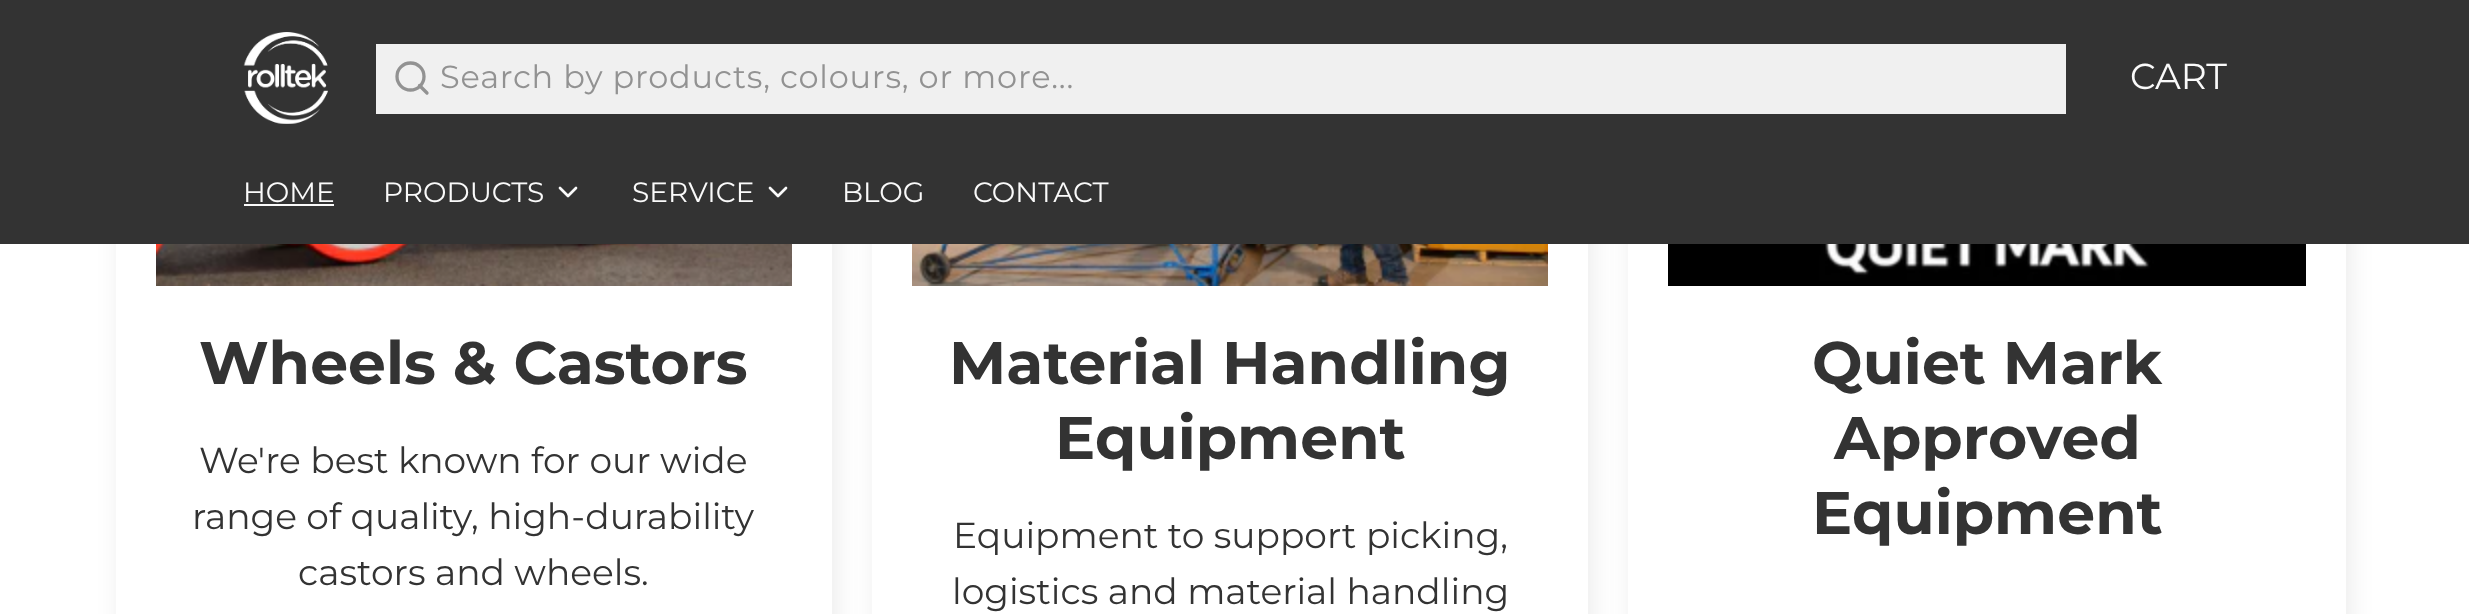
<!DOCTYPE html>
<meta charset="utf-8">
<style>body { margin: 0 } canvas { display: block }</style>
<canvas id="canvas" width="2469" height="614"></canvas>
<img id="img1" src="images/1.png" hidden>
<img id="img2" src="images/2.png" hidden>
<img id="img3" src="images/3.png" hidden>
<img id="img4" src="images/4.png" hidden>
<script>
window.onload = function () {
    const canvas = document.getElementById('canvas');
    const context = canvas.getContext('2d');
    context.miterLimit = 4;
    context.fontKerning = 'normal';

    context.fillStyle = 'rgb(255, 255, 255)';
    context.fillRect(0, 0, 2469, 614);
    context.save();
    context.beginPath();
    context.moveTo(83, 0);
    context.lineTo(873, 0);
    context.lineTo(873, 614);
    context.lineTo(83, 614);
    context.closePath();
    context.moveTo(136, -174);
    context.lineTo(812, -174);
    context.bezierCurveTo(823, -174, 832, -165, 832, -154);
    context.lineTo(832, 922);
    context.bezierCurveTo(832, 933, 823, 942, 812, 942);
    context.lineTo(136, 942);
    context.bezierCurveTo(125, 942, 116, 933, 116, 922);
    context.lineTo(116, -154);
    context.bezierCurveTo(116, -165, 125, -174, 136, -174);
    context.closePath();
    context.clip('evenodd');
    context.fillStyle = 'rgba(0, 0, 0, 0.08)';
    context.filter = 'blur(12px)';
    context.beginPath();
    context.roundRect(120, -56, 716, 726, 20);
    context.fill();
    context.filter = 'none';
    context.restore();
    context.save();
    context.beginPath();
    context.moveTo(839, 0);
    context.lineTo(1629, 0);
    context.lineTo(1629, 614);
    context.lineTo(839, 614);
    context.closePath();
    context.moveTo(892, -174);
    context.lineTo(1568, -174);
    context.bezierCurveTo(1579, -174, 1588, -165, 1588, -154);
    context.lineTo(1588, 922);
    context.bezierCurveTo(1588, 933, 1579, 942, 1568, 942);
    context.lineTo(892, 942);
    context.bezierCurveTo(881, 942, 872, 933, 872, 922);
    context.lineTo(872, -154);
    context.bezierCurveTo(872, -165, 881, -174, 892, -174);
    context.closePath();
    context.clip('evenodd');
    context.fillStyle = 'rgba(0, 0, 0, 0.08)';
    context.filter = 'blur(12px)';
    context.beginPath();
    context.roundRect(876, -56, 716, 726, 20);
    context.fill();
    context.filter = 'none';
    context.restore();
    context.save();
    context.beginPath();
    context.moveTo(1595, 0);
    context.lineTo(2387, 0);
    context.lineTo(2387, 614);
    context.lineTo(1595, 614);
    context.closePath();
    context.moveTo(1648, -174);
    context.lineTo(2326, -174);
    context.bezierCurveTo(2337, -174, 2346, -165, 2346, -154);
    context.lineTo(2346, 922);
    context.bezierCurveTo(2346, 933, 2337, 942, 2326, 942);
    context.lineTo(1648, 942);
    context.bezierCurveTo(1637, 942, 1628, 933, 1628, 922);
    context.lineTo(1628, -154);
    context.bezierCurveTo(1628, -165, 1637, -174, 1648, -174);
    context.closePath();
    context.clip('evenodd');
    context.fillStyle = 'rgba(0, 0, 0, 0.08)';
    context.filter = 'blur(12px)';
    context.beginPath();
    context.roundRect(1632, -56, 718, 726, 20);
    context.fill();
    context.filter = 'none';
    context.restore();
    context.fillStyle = 'rgb(51, 51, 51)';
    context.fillRect(0, 0, 2469, 244);
    context.drawImage(document.getElementById('img1'), 243, 32, 85, 92);
    context.fillStyle = 'rgb(240, 240, 240)';
    context.fillRect(376, 44, 1690, 70);
    context.beginPath();
    context.arc(410.5, 76.5, 13.5, 0, 2 * Math.PI);
    context.strokeStyle = 'rgb(146, 146, 146)';
    context.lineWidth = 3.3;
    context.stroke();
    context.beginPath();
    context.moveTo(427, 93);
    context.lineTo(419.5, 85.5);
    context.lineCap = 'round';
    context.lineJoin = 'round';
    context.stroke();
    context.fillStyle = 'rgb(250, 250, 250)';
    context.fillRect(244, 204, 90, 2);
    context.beginPath();
    context.moveTo(560, 188);
    context.lineTo(568, 196);
    context.lineTo(576, 188);
    context.strokeStyle = 'rgb(250, 250, 250)';
    context.lineWidth = 2.7;
    context.stroke();
    context.beginPath();
    context.moveTo(770, 188);
    context.lineTo(778, 196);
    context.lineTo(786, 188);
    context.stroke();
    context.drawImage(document.getElementById('img2'), 156, 244, 636, 42);
    context.drawImage(document.getElementById('img3'), 912, 244, 636, 42);
    context.drawImage(document.getElementById('img4'), 1668, 244, 638, 42);
    context.letterSpacing = '0.8px';
    context.font = '32px Montserrat';
    context.fillStyle = 'rgb(146, 146, 146)';
    context.fillText('Search by products, colours, or more...', 440, 88);
    context.letterSpacing = '0px';
    context.font = '36px Montserrat';
    context.fillStyle = 'rgb(250, 250, 250)';
    context.fillText('CART', 2130, 89);
    context.font = '28px Montserrat';
    context.fillText('HOME', 243, 202);
    context.fillText('PRODUCTS', 383, 202);
    context.fillText('SERVICE', 632, 202);
    context.fillText('BLOG', 842, 202);
    context.fillText('CONTACT', 973, 202);
    context.font = 'bold 60px Montserrat';
    context.fillStyle = 'rgb(51, 51, 51)';
    context.fillText('Wheels & Castors', 199, 384);
    context.font = '36px Montserrat';
    context.fillText('We\'re best known for our wide', 199, 473);
    context.fillText('range of quality, high-durability', 192, 529);
    context.fillText('castors and wheels.', 298, 585);
    context.font = 'bold 60px Montserrat';
    context.fillText('Material Handling', 949, 384);
    context.fillText('Equipment', 1055, 459);
    context.font = '36px Montserrat';
    context.fillText('Equipment to support picking,', 953, 548);
    context.fillText('logistics and material handling', 952, 604);
    context.font = 'bold 60px Montserrat';
    context.fillText('Quiet Mark', 1812, 384);
    context.fillText('Approved', 1834, 459);
    context.fillText('Equipment', 1812, 534);
};
</script>
